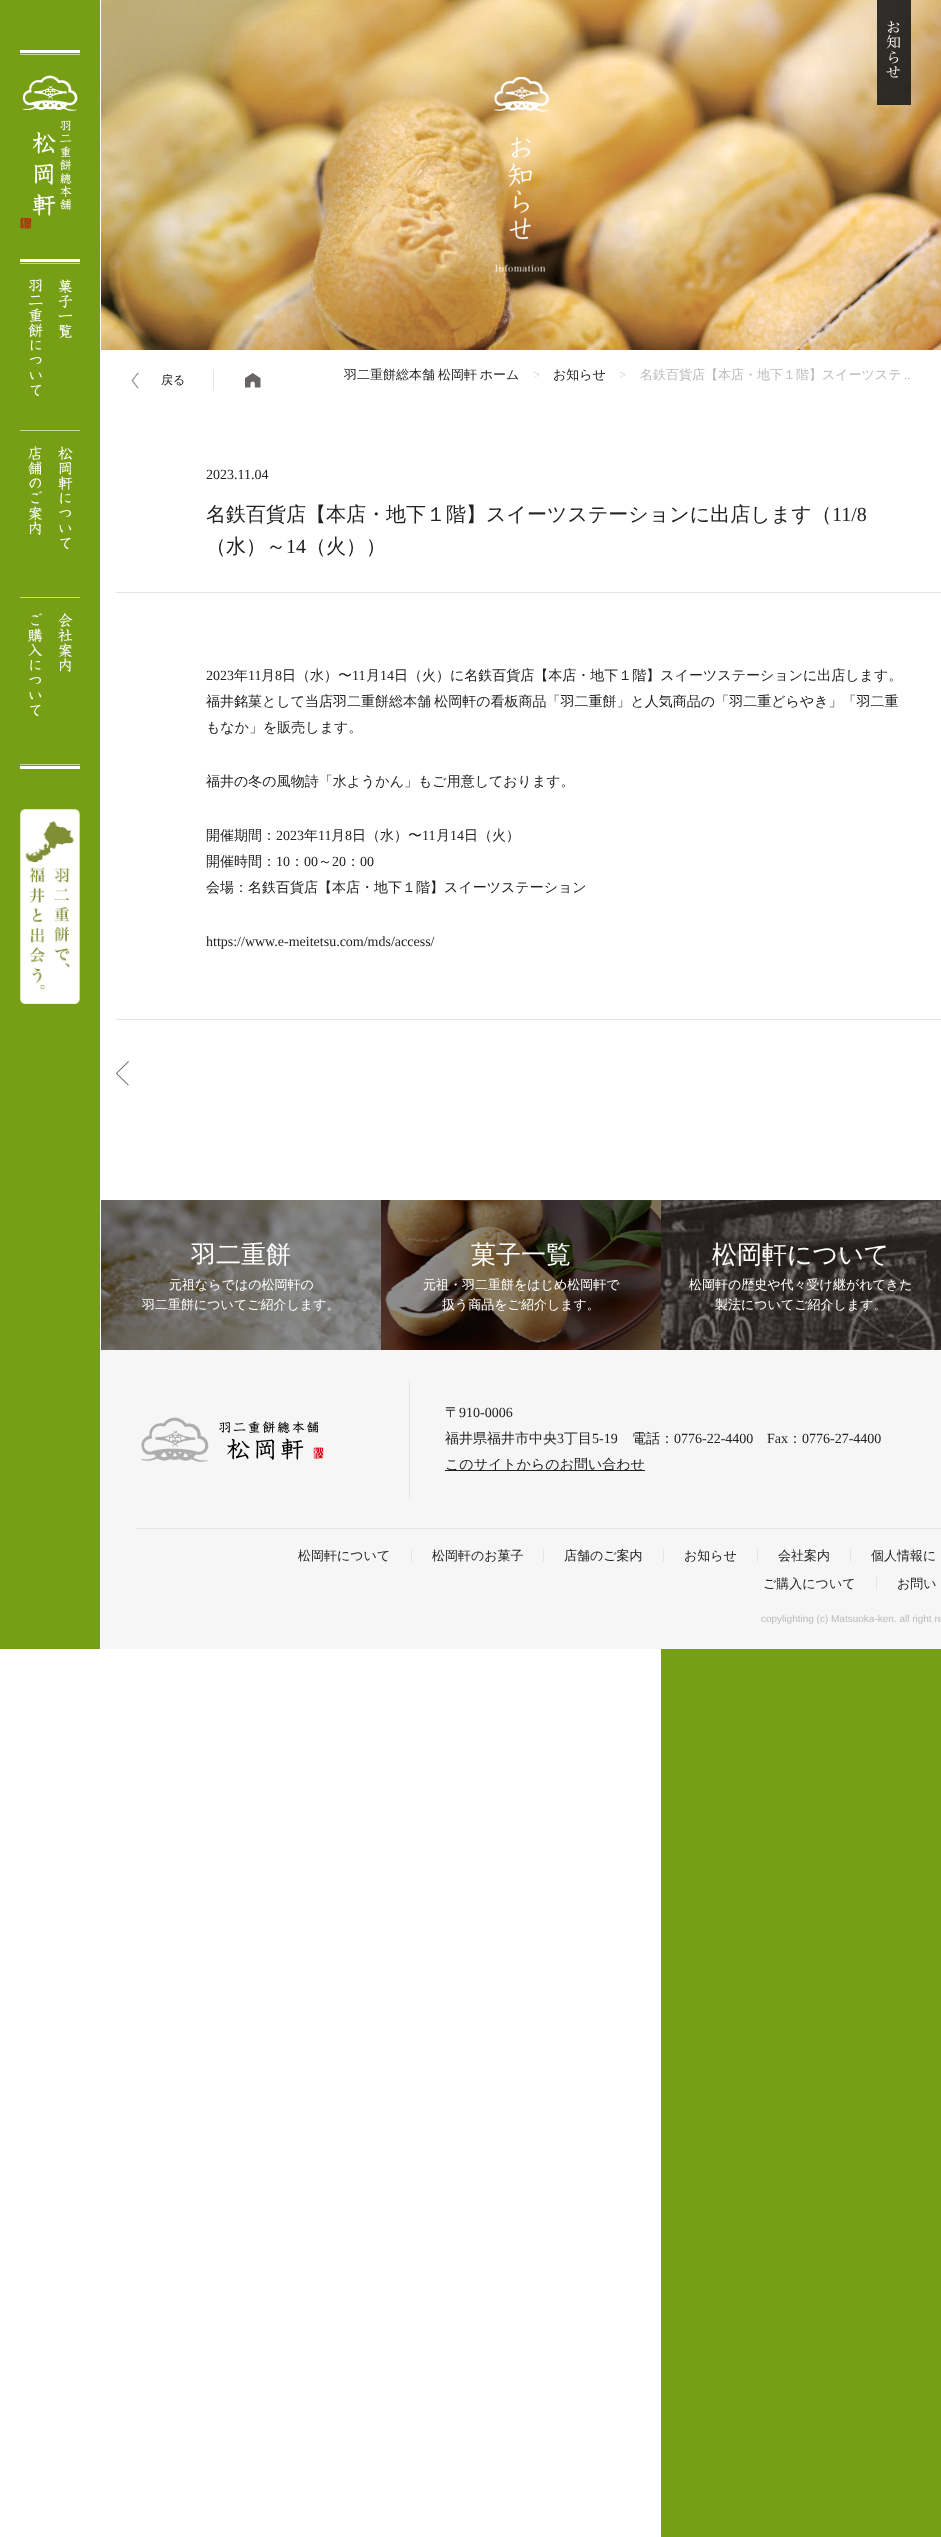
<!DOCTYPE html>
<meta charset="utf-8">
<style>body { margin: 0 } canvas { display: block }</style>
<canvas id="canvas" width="941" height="2537"></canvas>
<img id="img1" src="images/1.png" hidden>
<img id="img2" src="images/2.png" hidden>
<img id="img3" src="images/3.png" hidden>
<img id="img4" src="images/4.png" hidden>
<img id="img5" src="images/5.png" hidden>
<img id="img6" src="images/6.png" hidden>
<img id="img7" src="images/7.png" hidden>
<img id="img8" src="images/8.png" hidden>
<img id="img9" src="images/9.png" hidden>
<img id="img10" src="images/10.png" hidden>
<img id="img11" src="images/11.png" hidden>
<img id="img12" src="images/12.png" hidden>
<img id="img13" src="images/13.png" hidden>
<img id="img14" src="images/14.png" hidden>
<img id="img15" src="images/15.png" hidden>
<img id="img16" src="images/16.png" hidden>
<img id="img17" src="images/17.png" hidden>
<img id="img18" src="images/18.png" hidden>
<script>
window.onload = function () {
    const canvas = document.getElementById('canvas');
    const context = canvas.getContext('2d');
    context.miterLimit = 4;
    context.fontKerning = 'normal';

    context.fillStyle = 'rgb(255, 255, 255)';
    context.fillRect(0, 0, 941, 2537);
    context.fillStyle = 'rgb(119, 159, 22)';
    context.fillRect(0, 0, 100, 1649);
    context.fillStyle = 'rgb(255, 255, 255)';
    context.fillRect(20, 50, 60, 3);
    context.fillRect(20, 766, 60, 3);
    context.fillStyle = 'rgb(197, 216, 152)';
    context.fillRect(20, 54, 60, 1);
    context.fillStyle = 'rgb(255, 255, 255)';
    context.fillRect(20, 259, 60, 3);
    context.drawImage(document.getElementById('img1'), 20, 75, 58, 154);
    context.fillStyle = 'rgb(197, 216, 152)';
    context.fillRect(20, 764, 60, 1);
    context.fillRect(20, 263, 60, 1);
    context.drawImage(document.getElementById('img2'), 58, 279, 15, 59);
    context.drawImage(document.getElementById('img3'), 28, 279, 15, 117);
    context.fillRect(20, 430, 60, 1);
    context.drawImage(document.getElementById('img4'), 58, 446, 15, 103);
    context.drawImage(document.getElementById('img5'), 28, 446, 15, 89);
    context.fillRect(20, 597, 60, 1);
    context.drawImage(document.getElementById('img6'), 58, 613, 15, 59);
    context.drawImage(document.getElementById('img7'), 28, 613, 15, 103);
    context.drawImage(document.getElementById('img8'), 20, 809, 60, 195);
    context.drawImage(document.getElementById('img9'), 101, 0, 840, 350);
    context.drawImage(document.getElementById('img10'), 494, 77, 55, 195);
    context.drawImage(document.getElementById('img11'), 877, 0, 34, 105);
    context.drawImage(document.getElementById('img12'), 131, 372, 8, 17);
    context.fillStyle = 'rgb(229, 229, 229)';
    context.fillRect(213, 370, 1, 20);
    context.drawImage(document.getElementById('img13'), 245, 373, 16, 15);
    context.fillRect(116, 1019, 825, 1);
    context.fillRect(116, 592, 825, 1);
    context.drawImage(document.getElementById('img14'), 116, 1061, 13, 25);
    context.drawImage(document.getElementById('img15'), 101, 1200, 280, 150);
    context.drawImage(document.getElementById('img16'), 381, 1200, 280, 150);
    context.drawImage(document.getElementById('img17'), 661, 1200, 280, 150);
    context.fillStyle = 'rgb(246, 246, 246)';
    context.fillRect(101, 1350, 840, 299);
    context.drawImage(document.getElementById('img18'), 141, 1417, 183, 45);
    context.fillStyle = 'rgb(229, 229, 229)';
    context.fillRect(409, 1380, 1, 118);
    context.fillStyle = 'rgb(34, 34, 34)';
    context.fillRect(445, 1470, 200, 1);
    context.fillStyle = 'rgb(229, 229, 229)';
    context.fillRect(136, 1528, 805, 1);
    context.fillRect(411, 1549, 1, 13);
    context.fillRect(543, 1549, 1, 13);
    context.fillRect(663, 1549, 1, 13);
    context.fillRect(757, 1549, 1, 13);
    context.fillRect(850, 1549, 1, 13);
    context.fillRect(876, 1577, 1, 13);
    context.fillStyle = 'rgb(119, 159, 22)';
    context.fillRect(661, 1649, 280, 888);
    context.font = '500 12px WenQuanYi Zen Hei';
    context.fillStyle = 'rgb(34, 34, 34)';
    context.fillText('戻る', 161, 384);
    context.wordSpacing = '-1px';
    context.font = '500 13px WenQuanYi Zen Hei';
    context.fillText('羽二重餅総本舗 松岡軒 ホーム', 344, 379);
    context.wordSpacing = '0px';
    context.font = '13px Liberation Serif';
    context.fillStyle = 'rgb(204, 204, 204)';
    context.fillText('>', 533, 379);
    context.font = '500 13px WenQuanYi Zen Hei';
    context.fillStyle = 'rgb(34, 34, 34)';
    context.fillText('お知らせ', 553, 379);
    context.font = '13px Liberation Serif';
    context.fillStyle = 'rgb(204, 204, 204)';
    context.fillText('>', 619, 379);
    context.font = '500 13px WenQuanYi Zen Hei';
    context.fillStyle = 'rgb(187, 187, 187)';
    context.fillText('名鉄百貨店【本店・地下１階】スイーツステ', 640, 379);
    context.font = '13px Liberation Serif';
    context.fillText('..', 904, 379);
    context.font = '14px Liberation Serif';
    context.fillStyle = 'rgb(34, 34, 34)';
    context.fillText('2023.11.04', 206, 479);
    context.font = '500 20px WenQuanYi Zen Hei';
    context.fillText('名鉄百貨店【本店・地下１階】スイーツステーションに出店します（', 206, 521);
    context.font = '20px Liberation Serif';
    context.fillText('11/8', 832, 521);
    context.font = '500 20px WenQuanYi Zen Hei';
    context.fillText('（水）～', 206, 553);
    context.font = '20px Liberation Serif';
    context.fillText('14', 286, 553);
    context.font = '500 20px WenQuanYi Zen Hei';
    context.fillText('（火））', 306, 553);
    context.font = '14px Liberation Serif';
    context.fillText('2023', 206, 680);
    context.font = '500 14px WenQuanYi Zen Hei';
    context.fillText('年', 234, 680);
    context.font = '14px Liberation Serif';
    context.fillText('11', 248, 680);
    context.font = '500 14px WenQuanYi Zen Hei';
    context.fillText('月', 261, 680);
    context.font = '14px Liberation Serif';
    context.fillText('8', 275, 680);
    context.font = '500 14px WenQuanYi Zen Hei';
    context.fillText('日（水）〜', 282, 680);
    context.font = '14px Liberation Serif';
    context.fillText('11', 352, 680);
    context.font = '500 14px WenQuanYi Zen Hei';
    context.fillText('月', 366, 680);
    context.font = '14px Liberation Serif';
    context.fillText('14', 380, 680);
    context.font = '500 14px WenQuanYi Zen Hei';
    context.fillText('日（火）に名鉄百貨店【本店・地下１階】スイーツステーションに出店します。', 394, 680);
    context.wordSpacing = '-1px';
    context.fillText('福井銘菓として当店羽二重餅総本舗 松岡軒の看板商品「羽二重餅」と人気商品の「羽二重どらやき」「羽二重', 206, 706);
    context.wordSpacing = '0px';
    context.fillText('もなか」を販売します。', 206, 732);
    context.fillText('福井の冬の風物詩「水ようかん」もご用意しております。', 206, 786);
    context.fillText('開催期間：', 206, 840);
    context.font = '14px Liberation Serif';
    context.fillText('2023', 276, 840);
    context.font = '500 14px WenQuanYi Zen Hei';
    context.fillText('年', 304, 840);
    context.font = '14px Liberation Serif';
    context.fillText('11', 318, 840);
    context.font = '500 14px WenQuanYi Zen Hei';
    context.fillText('月', 331, 840);
    context.font = '14px Liberation Serif';
    context.fillText('8', 345, 840);
    context.font = '500 14px WenQuanYi Zen Hei';
    context.fillText('日（水）〜', 352, 840);
    context.font = '14px Liberation Serif';
    context.fillText('11', 422, 840);
    context.font = '500 14px WenQuanYi Zen Hei';
    context.fillText('月', 436, 840);
    context.font = '14px Liberation Serif';
    context.fillText('14', 450, 840);
    context.font = '500 14px WenQuanYi Zen Hei';
    context.fillText('日（火）', 464, 840);
    context.fillText('開催時間：', 206, 866);
    context.font = '14px Liberation Serif';
    context.fillText('10', 276, 866);
    context.font = '500 14px WenQuanYi Zen Hei';
    context.fillText('：', 290, 866);
    context.font = '14px Liberation Serif';
    context.fillText('00', 304, 866);
    context.font = '500 14px WenQuanYi Zen Hei';
    context.fillText('～', 318, 866);
    context.font = '14px Liberation Serif';
    context.fillText('20', 332, 866);
    context.font = '500 14px WenQuanYi Zen Hei';
    context.fillText('：', 346, 866);
    context.font = '14px Liberation Serif';
    context.fillText('00', 360, 866);
    context.font = '500 14px WenQuanYi Zen Hei';
    context.fillText('会場：名鉄百貨店【本店・地下１階】スイーツステーション', 206, 892);
    context.font = '14px Liberation Serif';
    context.fillText('https://www.e-meitetsu.com/mds/access/', 206, 946);
    context.font = '500 25px WenQuanYi Zen Hei';
    context.fillStyle = 'rgb(255, 255, 255)';
    context.fillText('羽二重餅', 191, 1263);
    context.font = '500 13px WenQuanYi Zen Hei';
    context.fillText('元祖ならではの松岡軒の', 169, 1289);
    context.fillText('羽二重餅についてご紹介します。', 142, 1309);
    context.font = '500 25px WenQuanYi Zen Hei';
    context.fillText('菓子一覧', 471, 1263);
    context.font = '500 13px WenQuanYi Zen Hei';
    context.fillText('元祖・羽二重餅をはじめ松岡軒で', 423, 1289);
    context.fillText('扱う商品をご紹介します。', 442, 1309);
    context.font = '500 25px WenQuanYi Zen Hei';
    context.fillText('松岡軒について', 712, 1263);
    context.font = '500 13px WenQuanYi Zen Hei';
    context.fillText('松岡軒の歴史や代々受け継がれてきた', 689, 1289);
    context.fillText('製法についてご紹介します。', 715, 1309);
    context.font = '500 14px WenQuanYi Zen Hei';
    context.fillStyle = 'rgb(34, 34, 34)';
    context.fillText('〒', 445, 1417);
    context.font = '14px Liberation Serif';
    context.fillText('910-0006', 459, 1417);
    context.font = '500 14px WenQuanYi Zen Hei';
    context.fillText('福井県福井市中央', 445, 1443);
    context.font = '14px Liberation Serif';
    context.fillText('3', 557, 1443);
    context.font = '500 14px WenQuanYi Zen Hei';
    context.fillText('丁目', 564, 1443);
    context.font = '14px Liberation Serif';
    context.fillText('5-19', 592, 1443);
    context.font = '500 14px WenQuanYi Zen Hei';
    context.fillText('電話：', 632, 1443);
    context.font = '14px Liberation Serif';
    context.fillText('0776-22-4400', 674, 1443);
    context.fillText('Fax', 767, 1443);
    context.font = '500 14px WenQuanYi Zen Hei';
    context.fillText('：', 788, 1443);
    context.font = '14px Liberation Serif';
    context.fillText('0776-27-4400', 802, 1443);
    context.font = '500 14px WenQuanYi Zen Hei';
    context.fillText('このサイトからのお問い合わせ', 445, 1469);
    context.font = '500 13px WenQuanYi Zen Hei';
    context.fillText('松岡軒について', 298, 1560);
    context.fillText('松岡軒のお菓子', 432, 1560);
    context.fillText('店舗のご案内', 564, 1560);
    context.fillText('お知らせ', 684, 1560);
    context.fillText('会社案内', 778, 1560);
    context.fillText('個人情報に', 871, 1560);
    context.fillText('ご購入について', 763, 1588);
    context.fillText('お問い', 897, 1588);
    context.font = '10px Liberation Sans';
    context.fillStyle = 'rgb(187, 187, 187)';
    context.fillText('copylighting (c) Matsuoka-ken. all right re', 761, 1622);
};
</script>
